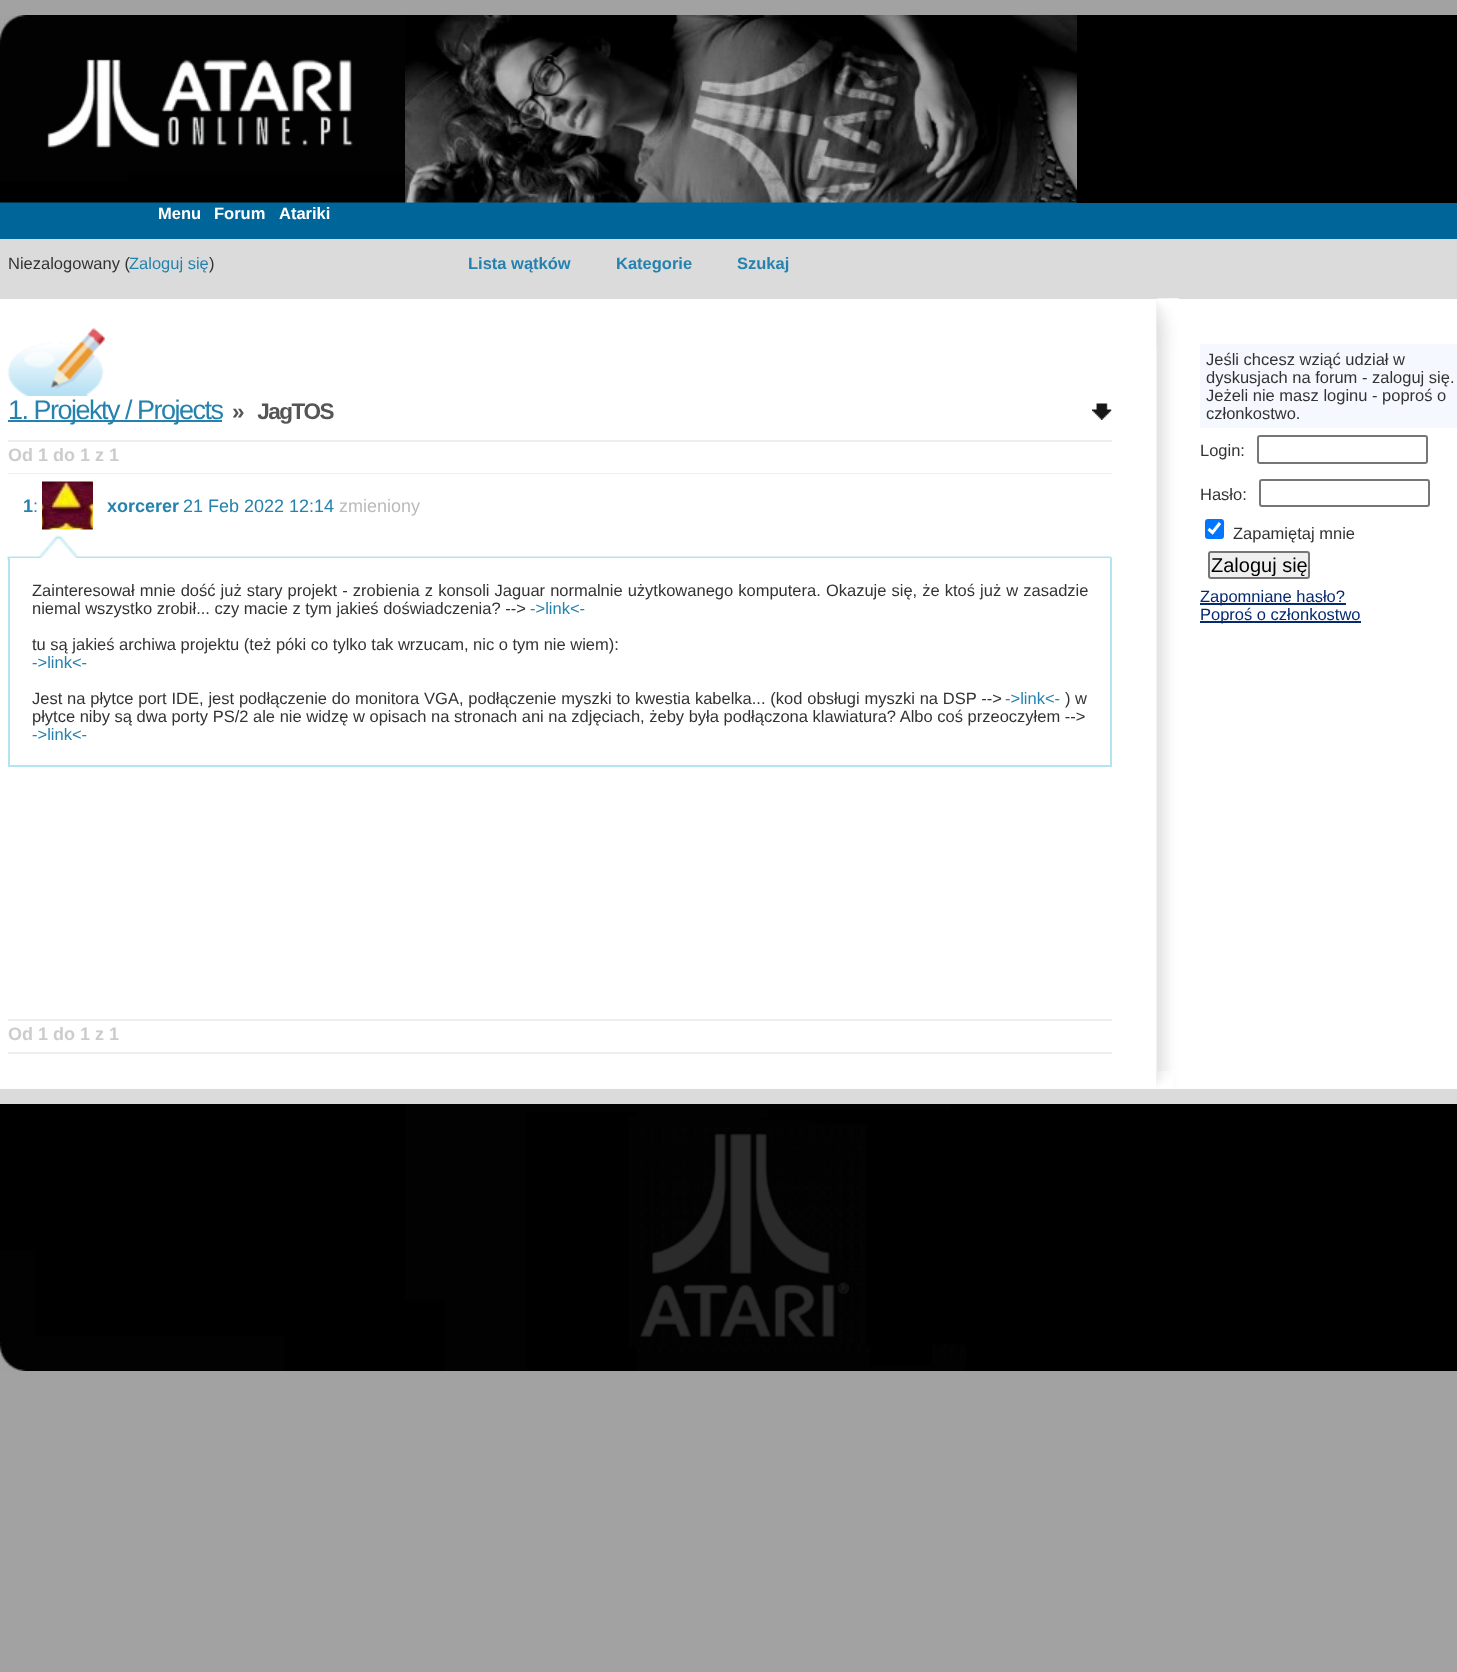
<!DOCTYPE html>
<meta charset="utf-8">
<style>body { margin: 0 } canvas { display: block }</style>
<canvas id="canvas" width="1457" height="1672"></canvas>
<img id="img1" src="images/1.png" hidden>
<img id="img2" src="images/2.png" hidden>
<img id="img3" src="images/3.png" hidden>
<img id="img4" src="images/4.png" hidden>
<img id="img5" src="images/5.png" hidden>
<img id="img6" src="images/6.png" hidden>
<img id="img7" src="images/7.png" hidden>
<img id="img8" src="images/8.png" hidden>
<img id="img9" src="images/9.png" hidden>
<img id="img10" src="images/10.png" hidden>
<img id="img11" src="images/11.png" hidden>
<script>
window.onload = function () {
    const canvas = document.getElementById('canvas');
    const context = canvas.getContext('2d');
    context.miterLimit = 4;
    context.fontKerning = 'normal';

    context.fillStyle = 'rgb(162, 162, 162)';
    context.fillRect(0, 0, 1457, 1672);
    context.fillStyle = 'rgb(0, 102, 153)';
    context.fillRect(0, 202, 1457, 37);
    context.drawImage(document.getElementById('img1'), 0, 15, 405, 188);
    context.drawImage(document.getElementById('img2'), 405, 15, 672, 188);
    context.fillStyle = 'rgb(0, 0, 0)';
    context.fillRect(1077, 15, 380, 188);
    context.fillStyle = 'rgb(220, 219, 219)';
    context.fillRect(0, 239, 1457, 865);
    context.fillStyle = 'rgb(255, 255, 255)';
    context.fillRect(0, 299, 1457, 790);
    context.drawImage(document.getElementById('img3'), 1156, 298, 23, 791);
    context.drawImage(document.getElementById('img4'), 1156, 298, 23, 48);
    context.drawImage(document.getElementById('img5'), 7, 328, 98, 68);
    context.fillStyle = 'rgb(37, 130, 174)';
    context.fillRect(8, 420, 214, 2);
    context.drawImage(document.getElementById('img6'), 1092, 403, 20, 17);
    context.fillStyle = 'rgb(238, 238, 238)';
    context.fillRect(8, 473, 1104, 1);
    context.fillRect(8, 440, 1104, 2);
    context.drawImage(document.getElementById('img7'), 7, 535, 1105, 25);
    context.drawImage(document.getElementById('img8'), 42, 481, 51, 49);
    context.fillStyle = 'rgb(255, 255, 255)';
    context.fillRect(10, 558, 1100, 2);
    context.fillStyle = 'rgb(180, 228, 240)';
    context.fillRect(1110, 558, 2, 209);
    context.fillRect(8, 765, 1104, 2);
    context.fillRect(8, 558, 2, 209);
    context.fillStyle = 'rgb(238, 238, 238)';
    context.fillRect(8, 1052, 1104, 2);
    context.fillRect(8, 1019, 1104, 2);
    context.fillStyle = 'rgb(245, 249, 255)';
    context.fillRect(1200, 344, 257, 84);
    context.beginPath();
    context.roundRect(1258, 436, 169, 27, 2);
    context.strokeStyle = 'rgb(118, 118, 118)';
    context.lineWidth = 2;
    context.stroke();
    context.beginPath();
    context.roundRect(1260, 480, 169, 26, 2);
    context.stroke();
    context.fillStyle = 'rgb(0, 117, 255)';
    context.beginPath();
    context.roundRect(1205, 519, 19, 20, 3);
    context.fill();
    context.beginPath();
    context.moveTo(1208.5, 529);
    context.lineTo(1212.5, 532.5);
    context.lineTo(1220, 523);
    context.strokeStyle = 'rgb(255, 255, 255)';
    context.lineWidth = 3.1;
    context.stroke();
    context.fillStyle = 'rgb(239, 239, 239)';
    context.beginPath();
    context.roundRect(1209, 552, 100, 26, 2);
    context.fill();
    context.strokeStyle = 'rgb(118, 118, 118)';
    context.lineWidth = 2;
    context.stroke();
    context.fillStyle = 'rgb(6, 41, 113)';
    context.fillRect(1200, 603, 146, 2);
    context.fillRect(1200, 621, 161, 2);
    context.drawImage(document.getElementById('img9'), 1156, 1071, 17, 18);
    context.drawImage(document.getElementById('img10'), 0, 1104, 405, 267);
    context.drawImage(document.getElementById('img11'), 405, 1104, 672, 267);
    context.fillStyle = 'rgb(0, 0, 0)';
    context.fillRect(1077, 1104, 380, 267);
    context.font = 'bold 16.5px Liberation Sans';
    context.fillStyle = 'rgb(255, 255, 255)';
    context.fillText('Menu', 158, 219);
    context.fillText('Forum', 214, 219);
    context.fillText('Atariki', 279, 219);
    context.font = '16.5px Liberation Sans';
    context.fillStyle = 'rgb(51, 51, 51)';
    context.fillText('Niezalogowany (', 8, 269);
    context.fillStyle = 'rgb(37, 130, 174)';
    context.fillText('Zaloguj się', 129, 269);
    context.fillStyle = 'rgb(51, 51, 51)';
    context.fillText(')', 209, 269);
    context.font = 'bold 16.5px Liberation Sans';
    context.fillStyle = 'rgb(37, 130, 174)';
    context.fillText('Lista wątków', 468, 269);
    context.fillText('Kategorie', 616, 269);
    context.fillText('Szukaj', 737, 269);
    context.letterSpacing = '-1.5px';
    context.font = '27px Liberation Sans';
    context.fillText('1. Projekty / Projects', 8, 419);
    context.font = 'bold 22.5px Liberation Sans';
    context.fillStyle = 'rgb(85, 85, 85)';
    context.fillText('»   JagTOS', 232, 419);
    context.letterSpacing = '0px';
    context.font = 'bold 18px Liberation Sans';
    context.fillStyle = 'rgb(204, 204, 204)';
    context.fillText('Od 1 do 1 z 1', 8, 461);
    context.fillStyle = 'rgb(37, 130, 174)';
    context.fillText('1', 23, 512);
    context.font = '18px Liberation Sans';
    context.fillText(':', 33, 512);
    context.font = 'bold 18px Liberation Sans';
    context.fillText('xorcerer', 107, 512);
    context.font = '18px Liberation Sans';
    context.fillText('21 Feb 2022 12:14', 183, 512);
    context.fillStyle = 'rgb(187, 187, 187)';
    context.fillText('zmieniony', 339, 512);
    context.wordSpacing = '0.5px';
    context.font = '16.5px Liberation Sans';
    context.fillStyle = 'rgb(51, 51, 51)';
    context.fillText('Zainteresował mnie dość już stary projekt - zrobienia z konsoli Jaguar normalnie użytkowanego komputera. Okazuje się, że ktoś już w zasadzie', 32, 596);
    context.wordSpacing = '0px';
    context.fillText('niemal wszystko zrobił... czy macie z tym jakieś doświadczenia? -->', 32, 614);
    context.fillStyle = 'rgb(37, 130, 174)';
    context.fillText('->link<-', 530, 614);
    context.fillStyle = 'rgb(51, 51, 51)';
    context.fillText('tu są jakieś archiwa projektu (też póki co tylko tak wrzucam, nic o tym nie wiem):', 32, 650);
    context.fillStyle = 'rgb(37, 130, 174)';
    context.fillText('->link<-', 32, 668);
    context.wordSpacing = '0.25px';
    context.fillStyle = 'rgb(51, 51, 51)';
    context.fillText('Jest na płytce port IDE, jest podłączenie do monitora VGA, podłączenie myszki to kwestia kabelka... (kod obsługi myszki na DSP -->', 32, 704);
    context.wordSpacing = '0px';
    context.fillStyle = 'rgb(37, 130, 174)';
    context.fillText('->link<-', 1005, 704);
    context.fillStyle = 'rgb(51, 51, 51)';
    context.fillText(') w', 1065, 704);
    context.fillText('płytce niby są dwa porty PS/2 ale nie widzę w opisach na stronach ani na zdjęciach, żeby była podłączona klawiatura? Albo coś przeoczyłem -->', 32, 722);
    context.fillStyle = 'rgb(37, 130, 174)';
    context.fillText('->link<-', 32, 740);
    context.font = 'bold 18px Liberation Sans';
    context.fillStyle = 'rgb(204, 204, 204)';
    context.fillText('Od 1 do 1 z 1', 8, 1040);
    context.font = '16.5px Liberation Sans';
    context.fillStyle = 'rgb(51, 51, 51)';
    context.fillText('Jeśli chcesz wziąć udział w', 1206, 365);
    context.fillText('dyskusjach na forum - zaloguj się.', 1206, 383);
    context.fillText('Jeżeli nie masz loginu - poproś o', 1206, 401);
    context.fillText('członkostwo.', 1206, 419);
    context.fillText('Login:', 1200, 456);
    context.fillText('Hasło:', 1200, 500);
    context.fillText('Zapamiętaj mnie', 1233, 539);
    context.save();
    context.beginPath();
    context.rect(1211, 554, 96, 22);
    context.clip();
    context.font = '20px Liberation Sans';
    context.fillStyle = 'rgb(0, 0, 0)';
    context.fillText('Zaloguj się', 1211, 572);
    context.restore();
    context.fillStyle = 'rgb(6, 41, 113)';
    context.fillText('Zapomniane hasło?', 1200, 602);
    context.fillText('Poproś o członkostwo', 1200, 620);
};
</script>
